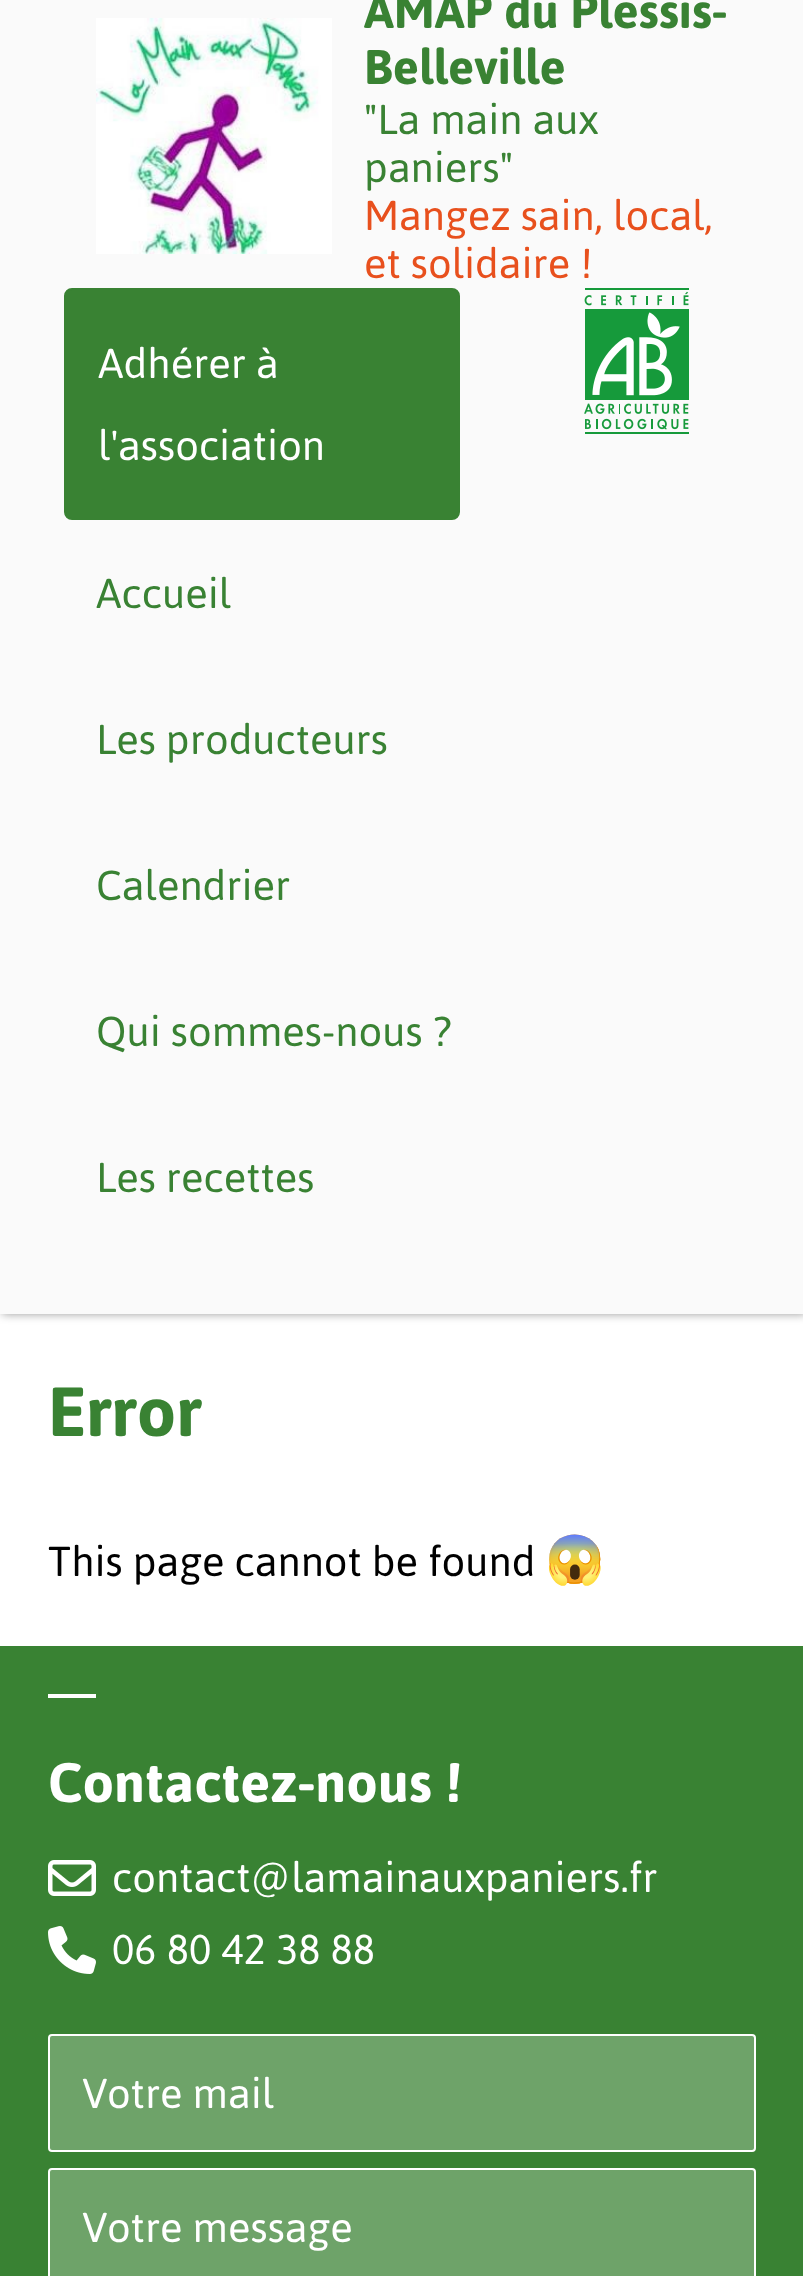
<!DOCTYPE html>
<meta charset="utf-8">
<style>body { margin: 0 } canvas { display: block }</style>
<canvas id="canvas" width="803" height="2276"></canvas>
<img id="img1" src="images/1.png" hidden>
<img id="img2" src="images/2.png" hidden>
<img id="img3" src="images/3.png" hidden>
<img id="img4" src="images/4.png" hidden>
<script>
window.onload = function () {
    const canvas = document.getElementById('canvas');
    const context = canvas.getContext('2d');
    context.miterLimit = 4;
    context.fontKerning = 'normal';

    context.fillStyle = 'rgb(255, 255, 255)';
    context.fillRect(0, 0, 803, 2276);
    context.fillStyle = 'rgba(0, 0, 0, 0.4)';
    context.filter = 'blur(5px)';
    context.beginPath();
    context.rect(2, -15, 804, 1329);
    context.fill();
    context.filter = 'none';
    context.fillStyle = 'rgb(250, 250, 250)';
    context.fillRect(0, 0, 803, 1314);
    context.drawImage(document.getElementById('img1'), 96, 18, 236, 236);
    context.fillStyle = 'rgb(57, 130, 51)';
    context.beginPath();
    context.roundRect(65, 289, 394, 230, 7);
    context.fill();
    context.strokeStyle = 'rgb(57, 130, 51)';
    context.lineWidth = 2;
    context.stroke();
    context.drawImage(document.getElementById('img2'), 584, 288, 105, 146);
    context.fillRect(0, 1646, 803, 630);
    context.fillStyle = 'rgb(255, 255, 255)';
    context.fillRect(48, 1694, 48, 4);
    context.drawImage(document.getElementById('img3'), 48, 1860, 48, 36);
    context.drawImage(document.getElementById('img4'), 48, 1926, 48, 48);
    context.fillStyle = 'rgb(110, 163, 105)';
    context.beginPath();
    context.roundRect(49, 2035, 706, 116, 3);
    context.fill();
    context.strokeStyle = 'rgb(255, 255, 255)';
    context.stroke();
    context.beginPath();
    context.roundRect(49, 2169, 706, 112, 3);
    context.fill();
    context.stroke();
    context.font = 'bold 56px Jaldi';
    context.fillStyle = 'rgb(57, 130, 51)';
    context.fillText('AMAP du Plessis-', 364, 28);
    context.fillText('Belleville', 364, 84);
    context.font = '48px Jaldi';
    context.fillText('"La main aux', 364, 134);
    context.fillText('paniers"', 364, 182);
    context.fillStyle = 'rgb(232, 80, 29)';
    context.fillText('Mangez sain, local,', 364, 230);
    context.fillText('et solidaire !', 364, 278);
    context.fillStyle = 'rgb(255, 255, 255)';
    context.fillText('Adhérer à', 98, 378);
    context.fillText('l\'association', 98, 460);
    context.fillStyle = 'rgb(57, 130, 51)';
    context.fillText('Accueil', 96, 608);
    context.fillText('Les producteurs', 96, 754);
    context.fillText('Calendrier', 96, 900);
    context.fillText('Qui sommes-nous ?', 96, 1046);
    context.fillText('Les recettes', 96, 1192);
    context.font = 'bold 80px Jaldi';
    context.fillText('Error', 48, 1436);
    context.font = '48px Jaldi';
    context.fillStyle = 'rgb(0, 0, 0)';
    context.fillText('This page cannot be found', 48, 1576);
    context.font = '48px Noto Color Emoji';
    context.fillText('😱', 545, 1576);
    context.font = 'bold 64px Jaldi';
    context.fillStyle = 'rgb(255, 255, 255)';
    context.fillText('Contactez-nous !', 48, 1802);
    context.font = '48px Jaldi';
    context.fillText('contact@lamainauxpaniers.fr', 112, 1892);
    context.fillText('06 80 42 38 88', 112, 1964);
    context.fillText('Votre mail', 82, 2108);
    context.fillText('Votre message', 82, 2242);
};
</script>
